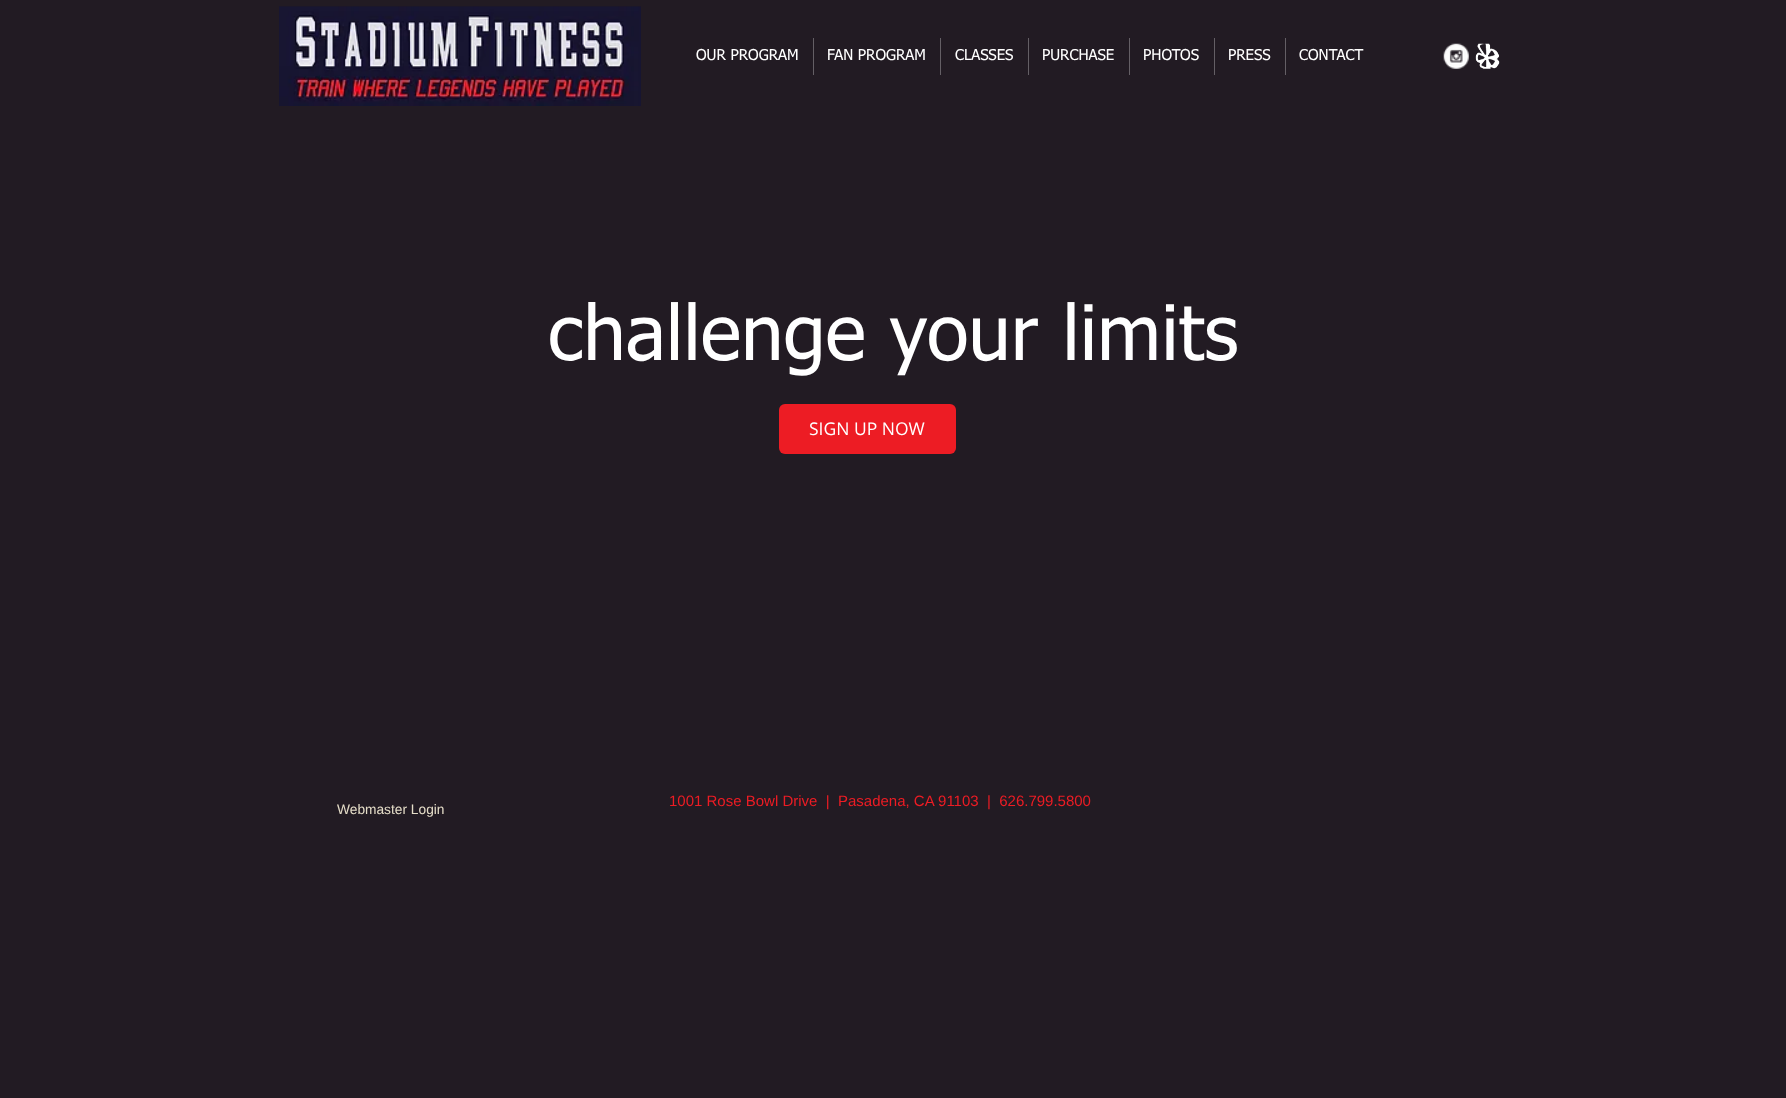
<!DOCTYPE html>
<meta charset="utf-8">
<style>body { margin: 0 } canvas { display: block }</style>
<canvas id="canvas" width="1786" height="1098"></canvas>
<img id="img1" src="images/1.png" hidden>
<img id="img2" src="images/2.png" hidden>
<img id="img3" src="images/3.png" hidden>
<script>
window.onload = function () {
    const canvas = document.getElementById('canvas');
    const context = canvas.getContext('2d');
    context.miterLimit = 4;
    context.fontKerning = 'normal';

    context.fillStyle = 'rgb(34, 27, 35)';
    context.fillRect(0, 0, 1786, 1098);
    context.drawImage(document.getElementById('img1'), 279, 6, 362, 100);
    context.fillStyle = 'rgb(100, 95, 101)';
    context.fillRect(813, 38, 1, 37);
    context.fillRect(940, 38, 1, 37);
    context.fillRect(1028, 38, 1, 37);
    context.fillRect(1129, 38, 1, 37);
    context.fillRect(1214, 38, 1, 37);
    context.fillRect(1285, 38, 1, 37);
    context.drawImage(document.getElementById('img2'), 1443, 43, 26, 26);
    context.drawImage(document.getElementById('img3'), 1475, 43, 25, 26);
    context.fillStyle = 'rgb(237, 28, 36)';
    context.beginPath();
    context.roundRect(779, 404, 177, 50, 6);
    context.fill();
    context.font = '15px tahoma';
    context.fillStyle = 'rgb(255, 255, 255)';
    context.fillText('OUR PROGRAM', 696, 60);
    context.fillText('FAN PROGRAM', 827, 60);
    context.fillText('CLASSES', 955, 60);
    context.fillText('PURCHASE', 1042, 60);
    context.fillText('PHOTOS', 1143, 60);
    context.fillText('PRESS', 1228, 60);
    context.fillText('CONTACT', 1299, 60);
    context.font = '76.25px tahoma';
    context.fillText('challenge your limits', 548, 360);
    context.font = '17.5px Open Sans';
    context.fillText('SIGN UP NOW', 809, 435);
    context.font = '13.75px Liberation Sans';
    context.fillStyle = 'rgb(229, 221, 200)';
    context.fillText('Webmaster Login', 337, 814);
    context.font = '15px Liberation Sans';
    context.fillStyle = 'rgb(237, 28, 36)';
    context.fillText('1001 Rose Bowl Drive  |  Pasadena, CA 91103  |  626.799.5800', 669, 806);
};
</script>
